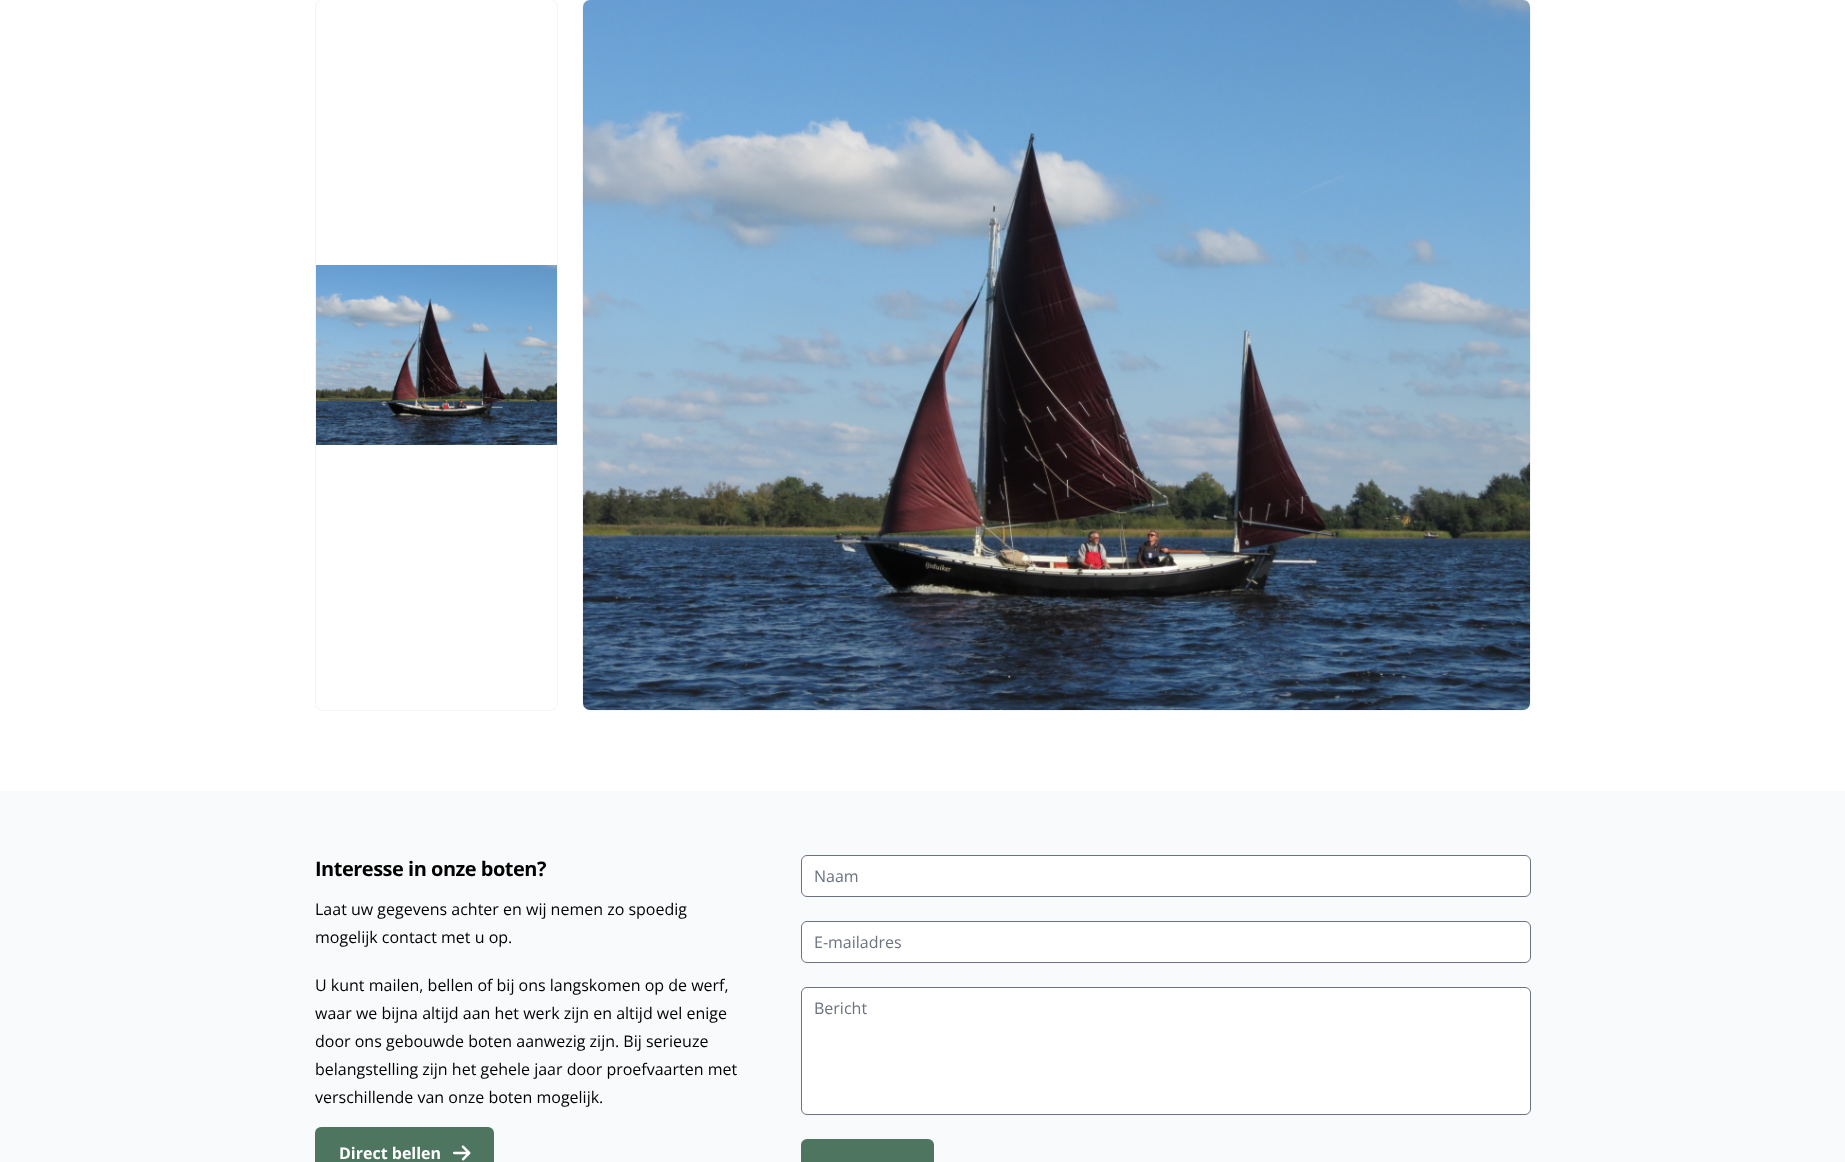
<!DOCTYPE html>
<meta charset="utf-8">
<style>body { margin: 0 } canvas { display: block }</style>
<canvas id="canvas" width="1845" height="1162"></canvas>
<img id="img1" src="images/1.png" hidden>
<img id="img2" src="images/2.png" hidden>
<img id="img3" src="images/3.png" hidden>
<script>
window.onload = function () {
    const canvas = document.getElementById('canvas');
    const context = canvas.getContext('2d');
    context.miterLimit = 4;
    context.fontKerning = 'normal';

    context.fillStyle = 'rgb(255, 255, 255)';
    context.fillRect(0, 0, 1845, 1162);
    context.beginPath();
    context.roundRect(315.5, -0.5, 242, 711, 7.5);
    context.strokeStyle = 'rgb(243, 244, 246)';
    context.stroke();
    context.drawImage(document.getElementById('img1'), 316, 265, 241, 180);
    context.beginPath();
    context.roundRect(582.5, -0.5, 948, 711, 7.5);
    context.stroke();
    context.drawImage(document.getElementById('img2'), 583, 0, 947, 710);
    context.fillStyle = 'rgb(249, 250, 251)';
    context.fillRect(0, 791, 1845, 371);
    context.fillStyle = 'rgb(77, 117, 96)';
    context.beginPath();
    context.roundRect(315, 1127, 179, 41, 6);
    context.fill();
    context.drawImage(document.getElementById('img3'), 453, 1145, 18, 16);
    context.fillStyle = 'rgb(255, 255, 255)';
    context.beginPath();
    context.roundRect(801.5, 855.5, 729, 41, 5.5);
    context.fill();
    context.strokeStyle = 'rgb(107, 114, 128)';
    context.stroke();
    context.beginPath();
    context.roundRect(801.5, 921.5, 729, 41, 5.5);
    context.fill();
    context.stroke();
    context.beginPath();
    context.roundRect(801.5, 987.5, 729, 127, 5.5);
    context.fill();
    context.stroke();
    context.fillStyle = 'rgb(77, 117, 96)';
    context.beginPath();
    context.roundRect(801, 1139, 133, 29, 6);
    context.fill();
    context.letterSpacing = '-0.5px';
    context.font = 'bold 20px Open Sans';
    context.fillStyle = 'rgb(0, 0, 0)';
    context.fillText('Interesse in onze boten?', 315, 876);
    context.letterSpacing = '0px';
    context.font = '16px Open Sans';
    context.fillText('Laat uw gegevens achter en wij nemen zo spoedig', 315, 915);
    context.fillText('mogelijk contact met u op.', 315, 943);
    context.fillText('U kunt mailen, bellen of bij ons langskomen op de werf,', 315, 991);
    context.fillText('waar we bijna altijd aan het werk zijn en altijd wel enige', 315, 1019);
    context.fillText('door ons gebouwde boten aanwezig zijn. Bij serieuze', 315, 1047);
    context.fillText('belangstelling zijn het gehele jaar door proefvaarten met', 315, 1075);
    context.fillText('verschillende van onze boten mogelijk.', 315, 1103);
    context.font = 'bold 16px Open Sans';
    context.fillStyle = 'rgb(255, 255, 255)';
    context.fillText('Direct bellen', 339, 1159);
    context.font = '16px Open Sans';
    context.fillStyle = 'rgb(107, 114, 128)';
    context.fillText('Naam', 814, 882);
    context.fillText('E-mailadres', 814, 948);
    context.fillText('Bericht', 814, 1014);
};
</script>
